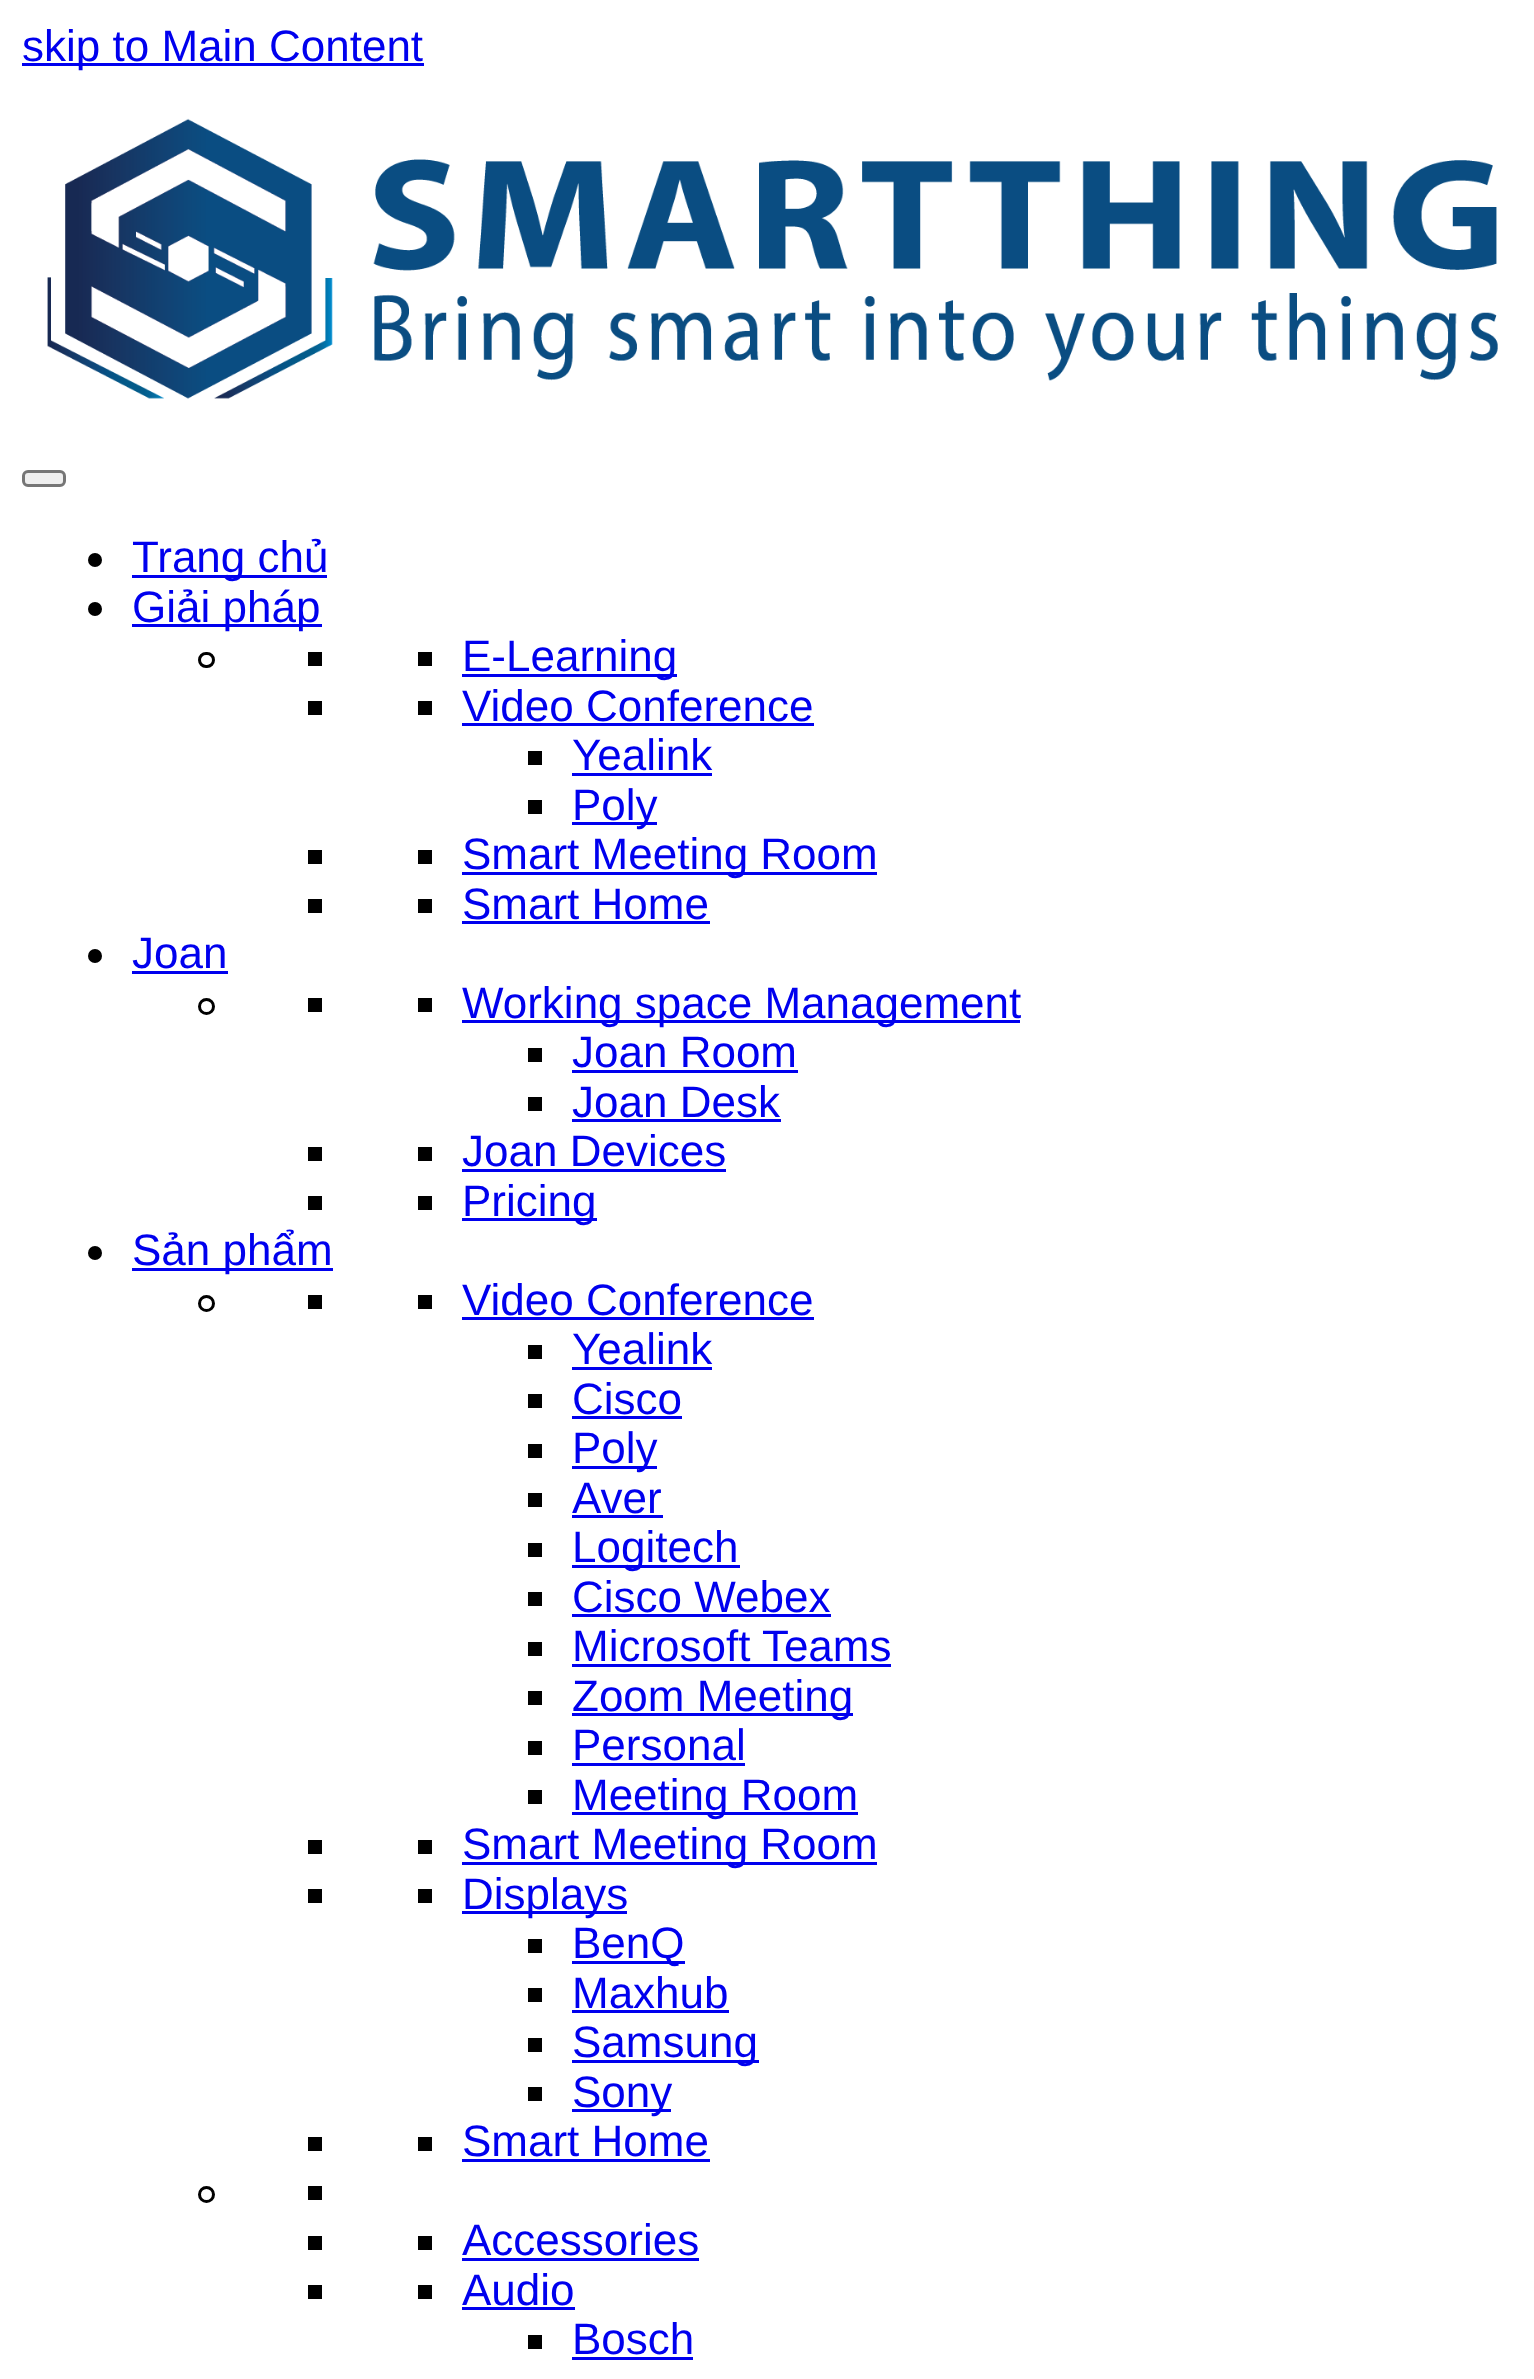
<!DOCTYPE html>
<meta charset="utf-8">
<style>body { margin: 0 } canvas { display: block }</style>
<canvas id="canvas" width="1534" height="2379"></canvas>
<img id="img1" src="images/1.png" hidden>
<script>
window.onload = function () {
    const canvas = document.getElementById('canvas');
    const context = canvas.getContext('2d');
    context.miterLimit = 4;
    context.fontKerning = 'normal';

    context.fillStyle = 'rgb(255, 255, 255)';
    context.fillRect(0, 0, 1534, 2379);
    context.fillStyle = 'rgb(0, 0, 238)';
    context.fillRect(22, 63, 402, 3);
    context.drawImage(document.getElementById('img1'), 47, 118, 1451, 281);
    context.fillStyle = 'rgb(239, 239, 239)';
    context.beginPath();
    context.roundRect(23.5, 471.5, 41, 14, 4.5);
    context.fill();
    context.strokeStyle = 'rgb(118, 118, 118)';
    context.lineWidth = 3;
    context.stroke();
    context.fillStyle = 'rgb(0, 0, 0)';
    context.beginPath();
    context.arc(95, 560, 7, 0, 2 * Math.PI);
    context.fill();
    context.fillStyle = 'rgb(0, 0, 238)';
    context.fillRect(132, 575, 195, 3);
    context.fillStyle = 'rgb(0, 0, 0)';
    context.beginPath();
    context.arc(95, 609, 7, 0, 2 * Math.PI);
    context.fill();
    context.fillStyle = 'rgb(0, 0, 238)';
    context.fillRect(132, 624, 190, 3);
    context.beginPath();
    context.roundRect(199.5, 653.5, 14, 13, 6.5);
    context.strokeStyle = 'rgb(0, 0, 0)';
    context.stroke();
    context.fillStyle = 'rgb(0, 0, 0)';
    context.fillRect(308, 652, 14, 14);
    context.fillRect(418, 652, 14, 14);
    context.fillStyle = 'rgb(0, 0, 238)';
    context.fillRect(462, 674, 215, 3);
    context.fillStyle = 'rgb(0, 0, 0)';
    context.fillRect(308, 701, 14, 14);
    context.fillRect(418, 701, 14, 14);
    context.fillStyle = 'rgb(0, 0, 238)';
    context.fillRect(462, 723, 352, 3);
    context.fillStyle = 'rgb(0, 0, 0)';
    context.fillRect(528, 751, 14, 14);
    context.fillStyle = 'rgb(0, 0, 238)';
    context.fillRect(572, 773, 140, 3);
    context.fillStyle = 'rgb(0, 0, 0)';
    context.fillRect(528, 800, 14, 14);
    context.fillStyle = 'rgb(0, 0, 238)';
    context.fillRect(572, 822, 85, 3);
    context.fillStyle = 'rgb(0, 0, 0)';
    context.fillRect(308, 850, 14, 14);
    context.fillRect(418, 850, 14, 14);
    context.fillStyle = 'rgb(0, 0, 238)';
    context.fillRect(462, 872, 415, 3);
    context.fillStyle = 'rgb(0, 0, 0)';
    context.fillRect(308, 899, 14, 14);
    context.fillRect(418, 899, 14, 14);
    context.fillStyle = 'rgb(0, 0, 238)';
    context.fillRect(462, 921, 248, 3);
    context.fillStyle = 'rgb(0, 0, 0)';
    context.beginPath();
    context.arc(95, 956, 7, 0, 2 * Math.PI);
    context.fill();
    context.fillStyle = 'rgb(0, 0, 238)';
    context.fillRect(132, 971, 96, 3);
    context.beginPath();
    context.arc(206.5, 1006.5, 7, 0, 2 * Math.PI);
    context.stroke();
    context.fillStyle = 'rgb(0, 0, 0)';
    context.fillRect(308, 998, 14, 14);
    context.fillRect(418, 998, 14, 14);
    context.fillStyle = 'rgb(0, 0, 238)';
    context.fillRect(462, 1020, 558, 3);
    context.fillStyle = 'rgb(0, 0, 0)';
    context.fillRect(528, 1048, 14, 14);
    context.fillStyle = 'rgb(0, 0, 238)';
    context.fillRect(572, 1070, 226, 3);
    context.fillStyle = 'rgb(0, 0, 0)';
    context.fillRect(528, 1097, 14, 14);
    context.fillStyle = 'rgb(0, 0, 238)';
    context.fillRect(572, 1119, 209, 3);
    context.fillStyle = 'rgb(0, 0, 0)';
    context.fillRect(308, 1147, 14, 14);
    context.fillRect(418, 1147, 14, 14);
    context.fillStyle = 'rgb(0, 0, 238)';
    context.fillRect(462, 1169, 264, 3);
    context.fillStyle = 'rgb(0, 0, 0)';
    context.fillRect(308, 1196, 14, 14);
    context.fillRect(418, 1196, 14, 14);
    context.fillStyle = 'rgb(0, 0, 238)';
    context.fillRect(462, 1218, 135, 3);
    context.fillStyle = 'rgb(0, 0, 0)';
    context.beginPath();
    context.arc(95, 1253, 7, 0, 2 * Math.PI);
    context.fill();
    context.fillStyle = 'rgb(0, 0, 238)';
    context.fillRect(132, 1268, 201, 3);
    context.beginPath();
    context.arc(206.5, 1303.5, 7, 0, 2 * Math.PI);
    context.stroke();
    context.fillStyle = 'rgb(0, 0, 0)';
    context.fillRect(308, 1295, 14, 14);
    context.fillRect(418, 1295, 14, 14);
    context.fillStyle = 'rgb(0, 0, 238)';
    context.fillRect(462, 1317, 352, 3);
    context.fillStyle = 'rgb(0, 0, 0)';
    context.fillRect(528, 1345, 14, 14);
    context.fillStyle = 'rgb(0, 0, 238)';
    context.fillRect(572, 1367, 140, 3);
    context.fillStyle = 'rgb(0, 0, 0)';
    context.fillRect(528, 1394, 14, 14);
    context.fillStyle = 'rgb(0, 0, 238)';
    context.fillRect(572, 1416, 110, 3);
    context.fillStyle = 'rgb(0, 0, 0)';
    context.fillRect(528, 1444, 14, 14);
    context.fillStyle = 'rgb(0, 0, 238)';
    context.fillRect(572, 1466, 85, 3);
    context.fillStyle = 'rgb(0, 0, 0)';
    context.fillRect(528, 1493, 14, 14);
    context.fillStyle = 'rgb(0, 0, 238)';
    context.fillRect(572, 1515, 91, 3);
    context.fillStyle = 'rgb(0, 0, 0)';
    context.fillRect(528, 1543, 14, 14);
    context.fillStyle = 'rgb(0, 0, 238)';
    context.fillRect(572, 1565, 168, 3);
    context.fillStyle = 'rgb(0, 0, 0)';
    context.fillRect(528, 1592, 14, 14);
    context.fillStyle = 'rgb(0, 0, 238)';
    context.fillRect(572, 1614, 259, 3);
    context.fillStyle = 'rgb(0, 0, 0)';
    context.fillRect(528, 1642, 14, 14);
    context.fillStyle = 'rgb(0, 0, 238)';
    context.fillRect(572, 1664, 319, 3);
    context.fillStyle = 'rgb(0, 0, 0)';
    context.fillRect(528, 1691, 14, 14);
    context.fillStyle = 'rgb(0, 0, 238)';
    context.fillRect(572, 1713, 281, 3);
    context.fillStyle = 'rgb(0, 0, 0)';
    context.fillRect(528, 1741, 14, 14);
    context.fillStyle = 'rgb(0, 0, 238)';
    context.fillRect(572, 1763, 173, 3);
    context.fillStyle = 'rgb(0, 0, 0)';
    context.fillRect(528, 1790, 14, 14);
    context.fillStyle = 'rgb(0, 0, 238)';
    context.fillRect(572, 1812, 286, 3);
    context.fillStyle = 'rgb(0, 0, 0)';
    context.fillRect(308, 1840, 14, 14);
    context.fillRect(418, 1840, 14, 14);
    context.fillStyle = 'rgb(0, 0, 238)';
    context.fillRect(462, 1862, 415, 3);
    context.fillStyle = 'rgb(0, 0, 0)';
    context.fillRect(308, 1889, 14, 14);
    context.fillRect(418, 1889, 14, 14);
    context.fillStyle = 'rgb(0, 0, 238)';
    context.fillRect(462, 1911, 165, 3);
    context.fillStyle = 'rgb(0, 0, 0)';
    context.fillRect(528, 1939, 14, 14);
    context.fillStyle = 'rgb(0, 0, 238)';
    context.fillRect(572, 1961, 113, 3);
    context.fillStyle = 'rgb(0, 0, 0)';
    context.fillRect(528, 1988, 14, 14);
    context.fillStyle = 'rgb(0, 0, 238)';
    context.fillRect(572, 2010, 157, 3);
    context.fillStyle = 'rgb(0, 0, 0)';
    context.fillRect(528, 2038, 14, 14);
    context.fillStyle = 'rgb(0, 0, 238)';
    context.fillRect(572, 2060, 187, 3);
    context.fillStyle = 'rgb(0, 0, 0)';
    context.fillRect(528, 2087, 14, 14);
    context.fillStyle = 'rgb(0, 0, 238)';
    context.fillRect(572, 2109, 99, 3);
    context.fillStyle = 'rgb(0, 0, 0)';
    context.fillRect(308, 2137, 14, 14);
    context.fillRect(418, 2137, 14, 14);
    context.fillStyle = 'rgb(0, 0, 238)';
    context.fillRect(462, 2159, 248, 3);
    context.beginPath();
    context.arc(206.5, 2194.5, 7, 0, 2 * Math.PI);
    context.stroke();
    context.fillStyle = 'rgb(0, 0, 0)';
    context.fillRect(308, 2186, 14, 14);
    context.fillRect(308, 2236, 14, 14);
    context.fillRect(418, 2236, 14, 14);
    context.fillStyle = 'rgb(0, 0, 238)';
    context.fillRect(462, 2258, 237, 3);
    context.fillStyle = 'rgb(0, 0, 0)';
    context.fillRect(308, 2285, 14, 14);
    context.fillRect(418, 2285, 14, 14);
    context.fillStyle = 'rgb(0, 0, 238)';
    context.fillRect(462, 2307, 113, 3);
    context.fillStyle = 'rgb(0, 0, 0)';
    context.fillRect(528, 2335, 14, 14);
    context.fillStyle = 'rgb(0, 0, 238)';
    context.fillRect(572, 2357, 121, 3);
    context.font = '44px Liberation Sans';
    context.fillText('skip to Main Content', 22, 61);
    context.fillText('Trang chủ', 132, 572);
    context.fillText('Giải pháp', 132, 622);
    context.fillText('E-Learning', 462, 671);
    context.fillText('Video Conference', 462, 721);
    context.fillText('Yealink', 572, 770);
    context.fillText('Poly', 572, 820);
    context.fillText('Smart Meeting Room', 462, 869);
    context.fillText('Smart Home', 462, 919);
    context.fillText('Joan', 132, 968);
    context.fillText('Working space Management', 462, 1018);
    context.fillText('Joan Room', 572, 1067);
    context.fillText('Joan Desk', 572, 1117);
    context.fillText('Joan Devices', 462, 1166);
    context.fillText('Pricing', 462, 1216);
    context.fillText('Sản phẩm', 132, 1265);
    context.fillText('Video Conference', 462, 1315);
    context.fillText('Yealink', 572, 1364);
    context.fillText('Cisco', 572, 1414);
    context.fillText('Poly', 572, 1463);
    context.fillText('Aver', 572, 1513);
    context.fillText('Logitech', 572, 1562);
    context.fillText('Cisco Webex', 572, 1612);
    context.fillText('Microsoft Teams', 572, 1661);
    context.fillText('Zoom Meeting', 572, 1711);
    context.fillText('Personal', 572, 1760);
    context.fillText('Meeting Room', 572, 1810);
    context.fillText('Smart Meeting Room', 462, 1859);
    context.fillText('Displays', 462, 1909);
    context.fillText('BenQ', 572, 1958);
    context.fillText('Maxhub', 572, 2008);
    context.fillText('Samsung', 572, 2057);
    context.fillText('Sony', 572, 2107);
    context.fillText('Smart Home', 462, 2156);
    context.fillText('Accessories', 462, 2255);
    context.fillText('Audio', 462, 2305);
    context.fillText('Bosch', 572, 2354);
};
</script>
